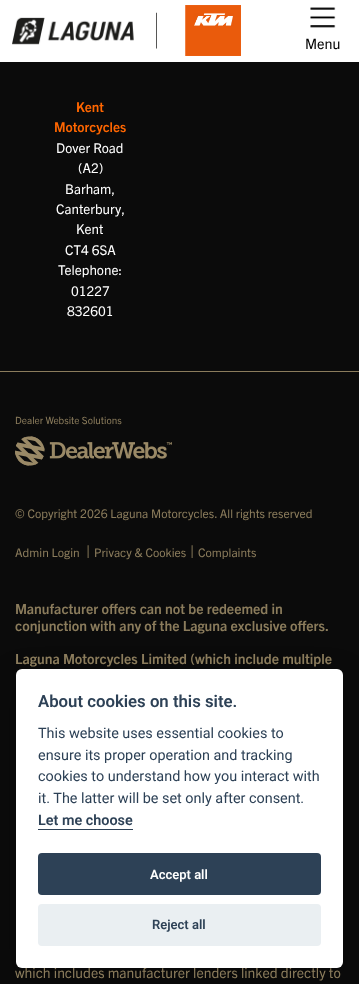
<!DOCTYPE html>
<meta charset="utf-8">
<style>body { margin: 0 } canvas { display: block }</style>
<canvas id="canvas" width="359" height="984"></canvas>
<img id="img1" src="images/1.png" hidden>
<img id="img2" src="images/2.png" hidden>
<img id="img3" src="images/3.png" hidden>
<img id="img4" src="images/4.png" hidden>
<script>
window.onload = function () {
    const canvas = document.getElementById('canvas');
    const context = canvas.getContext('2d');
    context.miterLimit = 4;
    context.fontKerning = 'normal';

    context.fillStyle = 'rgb(11, 11, 11)';
    context.fillRect(0, 0, 359, 984);
    context.fillStyle = 'rgb(255, 255, 255)';
    context.fillRect(0, 0, 359, 62);
    context.drawImage(document.getElementById('img1'), 12, 12, 145, 37);
    context.drawImage(document.getElementById('img2'), 185, 5, 56, 51);
    context.drawImage(document.getElementById('img3'), 310, 7, 26, 21);
    context.fillStyle = 'rgb(139, 124, 92)';
    context.fillRect(0, 371, 359, 1);
    context.drawImage(document.getElementById('img4'), 15, 436, 157, 30);
    context.fillStyle = 'rgba(2, 2, 3, 0.28)';
    context.filter = 'blur(15px)';
    context.beginPath();
    context.roundRect(16, 679, 327, 299, 6);
    context.fill();
    context.filter = 'none';
    context.font = '14.4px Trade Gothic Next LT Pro';
    context.fillStyle = 'rgb(0, 0, 0)';
    context.fillText('Menu', 305, 49);
    context.font = 'bold 13.5px Trade Gothic Next LT Pro';
    context.fillStyle = 'rgb(255, 102, 0)';
    context.fillText('Kent', 76, 112);
    context.fillText('Motorcycles', 54, 132);
    context.font = '13.5px Trade Gothic Next LT Pro';
    context.fillStyle = 'rgb(255, 255, 255)';
    context.fillText('Dover Road', 56, 153);
    context.fillText('(A2)', 78, 173);
    context.fillText('Barham,', 65, 194);
    context.fillText('Canterbury,', 56, 214);
    context.fillText('Kent', 76, 234);
    context.fillText('CT4 6SA', 65, 255);
    context.fillText('Telephone:', 58, 275);
    context.fillText('01227', 71, 296);
    context.fillText('832601', 67, 316);
    context.font = '10px Trade Gothic Next LT Pro';
    context.fillStyle = 'rgb(139, 124, 92)';
    context.fillText('Dealer Website Solutions', 15, 424);
    context.font = '12px Trade Gothic Next LT Pro';
    context.fillText('© Copyright 2026 Laguna Motorcycles. All rights reserved', 15, 518);
    context.fillText('Admin Login', 15, 557);
    context.font = '16px Trade Gothic Next LT Pro';
    context.fillText('|', 86, 557);
    context.font = '12px Trade Gothic Next LT Pro';
    context.fillText('Privacy & Cookies', 94, 557);
    context.font = '16px Trade Gothic Next LT Pro';
    context.fillText('|', 190, 557);
    context.font = '12px Trade Gothic Next LT Pro';
    context.fillText('Complaints', 198, 557);
    context.font = 'bold 14px Trade Gothic Next LT Pro';
    context.fillText('Manufacturer offers can not be redeemed in', 15, 614);
    context.fillText('conjunction with any of the Laguna exclusive offers.', 15, 631);
    context.fillText('Laguna Motorcycles Limited (which include multiple', 15, 664);
    context.font = '14px Trade Gothic Next LT Pro';
    context.fillText('which includes manufacturer lenders linked directly to', 15, 978);
    context.fillStyle = 'rgb(255, 255, 255)';
    context.beginPath();
    context.roundRect(16, 669, 327, 299, 6);
    context.fill();
    context.font = '600 16.75px Roboto';
    context.fillStyle = 'rgb(45, 65, 86)';
    context.fillText('About cookies on this site.', 38, 707);
    context.font = '14.4px Roboto';
    context.fillText('This website uses essential cookies to', 38, 738);
    context.fillText('ensure its proper operation and tracking', 38, 760);
    context.fillText('cookies to understand how you interact with', 38, 781);
    context.fillText('it. The latter will be set only after consent.', 38, 803);
    context.font = '600 14.4px Roboto';
    context.fillText('Let me choose', 38, 825);
    context.fillRect(38, 829, 95, 1);
    context.beginPath();
    context.roundRect(38, 853, 283, 42, 4);
    context.fill();
    context.font = '600 13px Roboto';
    context.fillStyle = 'rgb(255, 255, 255)';
    context.fillText('Accept all', 150, 879);
    context.fillStyle = 'rgb(234, 239, 242)';
    context.beginPath();
    context.roundRect(38, 904, 283, 42, 4);
    context.fill();
    context.fillStyle = 'rgb(45, 65, 86)';
    context.fillText('Reject all', 152, 929);
};
</script>
